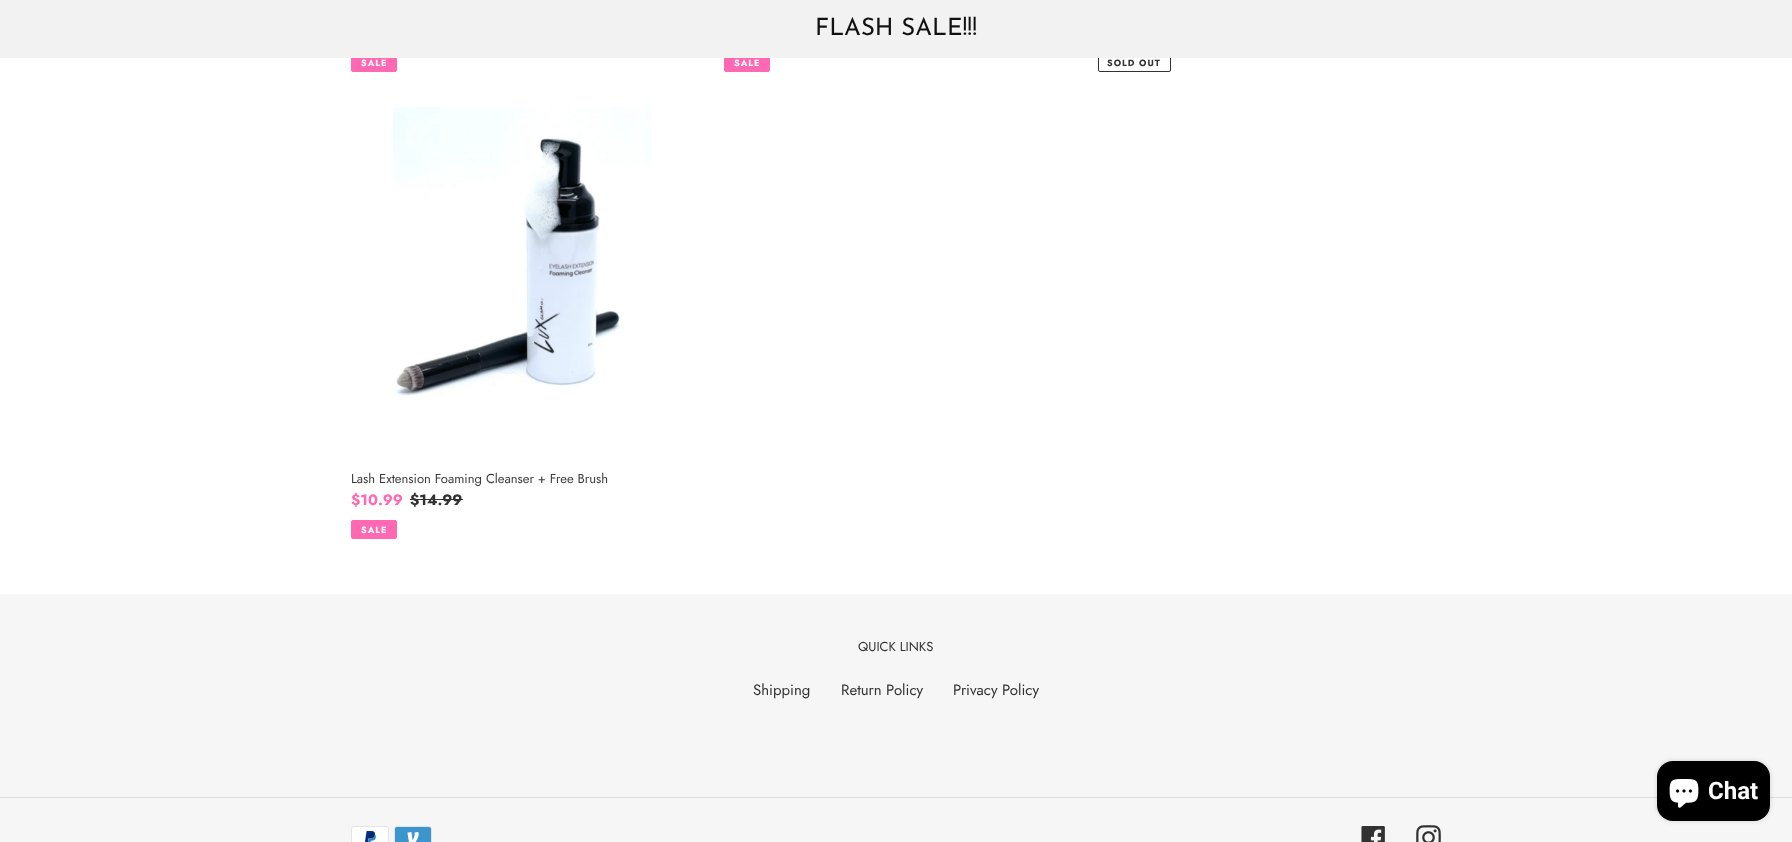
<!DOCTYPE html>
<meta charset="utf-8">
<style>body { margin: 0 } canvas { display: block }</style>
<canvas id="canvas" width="1792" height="842"></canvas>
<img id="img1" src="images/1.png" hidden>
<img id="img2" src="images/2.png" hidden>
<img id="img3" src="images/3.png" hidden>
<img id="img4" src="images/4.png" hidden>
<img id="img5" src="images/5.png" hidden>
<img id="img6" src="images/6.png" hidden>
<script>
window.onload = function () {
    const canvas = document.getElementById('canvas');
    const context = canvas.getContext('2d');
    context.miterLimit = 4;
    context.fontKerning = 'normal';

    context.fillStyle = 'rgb(255, 255, 255)';
    context.fillRect(0, 0, 1792, 842);
    context.fillStyle = 'rgb(255, 105, 180)';
    context.beginPath();
    context.roundRect(351.5, 53.5, 45, 18, 1.5);
    context.fill();
    context.strokeStyle = 'rgb(255, 105, 180)';
    context.stroke();
    context.beginPath();
    context.roundRect(724.5, 53.5, 45, 18, 1.5);
    context.fill();
    context.stroke();
    context.beginPath();
    context.roundRect(1098.5, 53.5, 72, 18, 1.5);
    context.strokeStyle = 'rgb(51, 50, 50)';
    context.stroke();
    context.fillStyle = 'rgb(242, 242, 242)';
    context.fillRect(0, 0, 1792, 58);
    context.drawImage(document.getElementById('img1'), 393, 107, 259, 290);
    context.fillStyle = 'rgb(51, 50, 50)';
    context.fillRect(410, 499, 53, 1);
    context.fillStyle = 'rgb(255, 105, 180)';
    context.beginPath();
    context.roundRect(351.5, 520.5, 45, 18, 1.5);
    context.fill();
    context.strokeStyle = 'rgb(255, 105, 180)';
    context.stroke();
    context.fillStyle = 'rgb(246, 246, 246)';
    context.fillRect(0, 594, 1792, 248);
    context.fillStyle = 'rgb(221, 221, 221)';
    context.fillRect(0, 797, 1792, 1);
    context.drawImage(document.getElementById('img2'), 351, 826, 38, 16);
    context.drawImage(document.getElementById('img3'), 394, 826, 38, 16);
    context.drawImage(document.getElementById('img4'), 1361, 826, 24, 16);
    context.drawImage(document.getElementById('img5'), 1416, 825, 25, 17);
    context.fillStyle = 'rgba(0, 0, 0, 0.15)';
    context.filter = 'blur(2.5px)';
    context.beginPath();
    context.roundRect(1657, 761, 113, 60, 16);
    context.fill();
    context.filter = 'none';
    context.fillStyle = 'rgb(0, 0, 0)';
    context.beginPath();
    context.roundRect(1657, 761, 113, 60, 16);
    context.fill();
    context.drawImage(document.getElementById('img6'), 1669, 779, 30, 29);
    context.font = '100 24px Josefin Sans';
    context.fillStyle = 'rgb(17, 17, 17)';
    context.fillText('FLASH SALE!!!', 815, 35);
    context.letterSpacing = '1px';
    context.font = 'bold 9px Jost';
    context.fillStyle = 'rgb(255, 255, 255)';
    context.fillText('SALE', 361, 66);
    context.fillText('SALE', 734, 66);
    context.fillStyle = 'rgb(51, 50, 50)';
    context.fillText('SOLD OUT', 1107, 66);
    context.letterSpacing = '0px';
    context.font = '13px Jost';
    context.fillStyle = 'rgb(58, 58, 58)';
    context.fillText('Lash Extension Foaming Cleanser + Free Brush', 351, 483);
    context.font = 'bold 15px Jost';
    context.fillStyle = 'rgb(255, 105, 180)';
    context.fillText('$10.99', 351, 505);
    context.fillStyle = 'rgb(51, 50, 50)';
    context.fillText('$14.99', 410, 505);
    context.letterSpacing = '1px';
    context.font = 'bold 9px Jost';
    context.fillStyle = 'rgb(255, 255, 255)';
    context.fillText('SALE', 361, 533);
    context.letterSpacing = '0px';
    context.font = '13px Jost';
    context.fillStyle = 'rgb(51, 50, 50)';
    context.fillText('QUICK LINKS', 858, 651);
    context.font = '15px Jost';
    context.fillText('Shipping', 753, 695);
    context.fillText('Return Policy', 841, 695);
    context.fillText('Privacy Policy', 953, 695);
    context.font = 'bold 24px Roboto';
    context.fillStyle = 'rgb(255, 255, 255)';
    context.fillText('Chat', 1708, 799);
};
</script>
